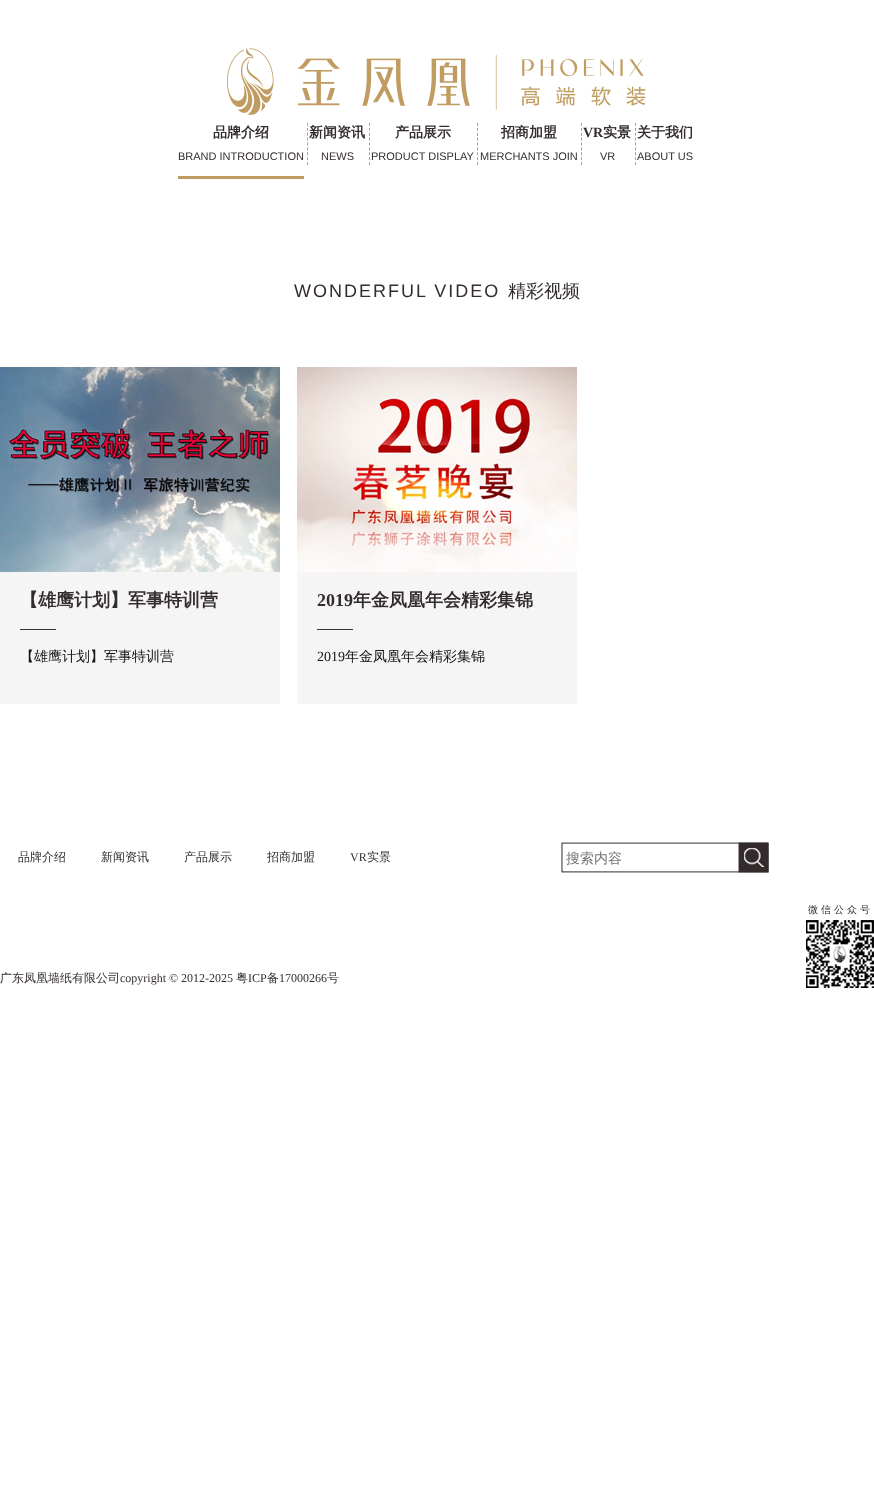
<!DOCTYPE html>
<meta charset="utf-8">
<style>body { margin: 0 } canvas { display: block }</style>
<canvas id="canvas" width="874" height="1492"></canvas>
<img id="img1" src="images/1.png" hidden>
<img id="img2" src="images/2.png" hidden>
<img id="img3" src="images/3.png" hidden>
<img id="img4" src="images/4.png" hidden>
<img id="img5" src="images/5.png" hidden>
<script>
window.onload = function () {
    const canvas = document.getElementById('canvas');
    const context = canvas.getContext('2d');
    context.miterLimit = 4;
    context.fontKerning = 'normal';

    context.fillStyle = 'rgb(255, 255, 255)';
    context.fillRect(0, 0, 874, 1492);
    context.drawImage(document.getElementById('img1'), 227, 45, 419, 70);
    context.fillStyle = 'rgb(192, 156, 97)';
    context.fillRect(178, 176, 126, 3);
    context.beginPath();
    context.moveTo(307.5, 123);
    context.lineTo(307.5, 165);
    context.strokeStyle = 'rgb(195, 156, 97)';
    context.setLineDash([3, 1.88]);
    context.stroke();
    context.beginPath();
    context.moveTo(369.5, 123);
    context.lineTo(369.5, 165);
    context.stroke();
    context.beginPath();
    context.moveTo(477.5, 123);
    context.lineTo(477.5, 165);
    context.stroke();
    context.beginPath();
    context.moveTo(581.5, 123);
    context.lineTo(581.5, 165);
    context.stroke();
    context.beginPath();
    context.moveTo(635.5, 123);
    context.lineTo(635.5, 165);
    context.stroke();
    context.fillStyle = 'rgb(245, 245, 245)';
    context.fillRect(0, 572, 280, 132);
    context.drawImage(document.getElementById('img2'), 0, 367, 280, 205);
    context.fillStyle = 'rgb(53, 53, 53)';
    context.fillRect(20, 629, 36, 1);
    context.fillStyle = 'rgb(245, 245, 245)';
    context.fillRect(297, 572, 280, 132);
    context.drawImage(document.getElementById('img3'), 297, 367, 280, 205);
    context.fillStyle = 'rgb(53, 53, 53)';
    context.fillRect(317, 629, 36, 1);
    context.drawImage(document.getElementById('img4'), 561, 842, 208, 31);
    context.drawImage(document.getElementById('img5'), 806, 920, 68, 68);
    context.font = 'bold 14px WenQuanYi Zen Hei';
    context.fillStyle = 'rgb(51, 44, 45)';
    context.fillText('品牌介绍', 213, 137);
    context.font = '11px Liberation Sans';
    context.fillText('BRAND INTRODUCTION', 178, 160);
    context.font = 'bold 14px WenQuanYi Zen Hei';
    context.fillText('新闻资讯', 309, 137);
    context.font = '11px Liberation Sans';
    context.fillText('NEWS', 321, 160);
    context.font = 'bold 14px WenQuanYi Zen Hei';
    context.fillText('产品展示', 395, 137);
    context.font = '11px Liberation Sans';
    context.fillText('PRODUCT DISPLAY', 371, 160);
    context.font = 'bold 14px WenQuanYi Zen Hei';
    context.fillText('招商加盟', 501, 137);
    context.font = '11px Liberation Sans';
    context.fillText('MERCHANTS JOIN', 480, 160);
    context.font = 'bold 14px Liberation Serif';
    context.fillText('VR', 583, 137);
    context.font = 'bold 14px WenQuanYi Zen Hei';
    context.fillText('实景', 603, 137);
    context.font = '11px Liberation Sans';
    context.fillText('VR', 600, 160);
    context.font = 'bold 14px WenQuanYi Zen Hei';
    context.fillText('关于我们', 637, 137);
    context.font = '11px Liberation Sans';
    context.fillText('ABOUT US', 637, 160);
    context.letterSpacing = '2px';
    context.font = '18px Liberation Sans';
    context.fillText('WONDERFUL VIDEO', 294, 297);
    context.letterSpacing = '0px';
    context.font = '500 18px WenQuanYi Zen Hei';
    context.fillText('精彩视频', 508, 297);
    context.font = 'bold 18px WenQuanYi Zen Hei';
    context.fillText('【雄鹰计划】军事特训营', 20, 606);
    context.font = '500 14px WenQuanYi Zen Hei';
    context.fillStyle = 'rgb(20, 20, 20)';
    context.fillText('【雄鹰计划】军事特训营', 20, 661);
    context.font = 'bold 18px Liberation Serif';
    context.fillStyle = 'rgb(51, 44, 45)';
    context.fillText('2019', 317, 606);
    context.font = 'bold 18px WenQuanYi Zen Hei';
    context.fillText('年金凤凰年会精彩集锦', 353, 606);
    context.font = '14px Liberation Serif';
    context.fillStyle = 'rgb(20, 20, 20)';
    context.fillText('2019', 317, 661);
    context.font = '500 14px WenQuanYi Zen Hei';
    context.fillText('年金凤凰年会精彩集锦', 345, 661);
    context.font = '500 12px WenQuanYi Zen Hei';
    context.fillStyle = 'rgb(51, 44, 45)';
    context.fillText('品牌介绍', 18, 861);
    context.fillText('新闻资讯', 101, 861);
    context.fillText('产品展示', 184, 861);
    context.fillText('招商加盟', 267, 861);
    context.font = '12px Liberation Serif';
    context.fillText('VR', 350, 861);
    context.font = '500 12px WenQuanYi Zen Hei';
    context.fillText('实景', 367, 861);
    context.font = '500 14px WenQuanYi Zen Hei';
    context.fillStyle = 'rgb(117, 117, 117)';
    context.fillText('搜索内容', 566, 863);
    context.letterSpacing = '3px';
    context.font = '500 10px WenQuanYi Zen Hei';
    context.fillStyle = 'rgb(51, 44, 45)';
    context.fillText('微信公众号', 808, 913);
    context.letterSpacing = '0px';
    context.font = '500 12px WenQuanYi Zen Hei';
    context.fillText('广东凤凰墙纸有限公司', 0, 982);
    context.font = '12px Liberation Serif';
    context.fillText('copyright © 2012-2025', 120, 982);
    context.font = '500 12px WenQuanYi Zen Hei';
    context.fillText('粤', 236, 982);
    context.font = '12px Liberation Serif';
    context.fillText('ICP', 248, 982);
    context.font = '500 12px WenQuanYi Zen Hei';
    context.fillText('备', 267, 982);
    context.font = '12px Liberation Serif';
    context.fillText('17000266', 279, 982);
    context.font = '500 12px WenQuanYi Zen Hei';
    context.fillText('号', 327, 982);
};
</script>
